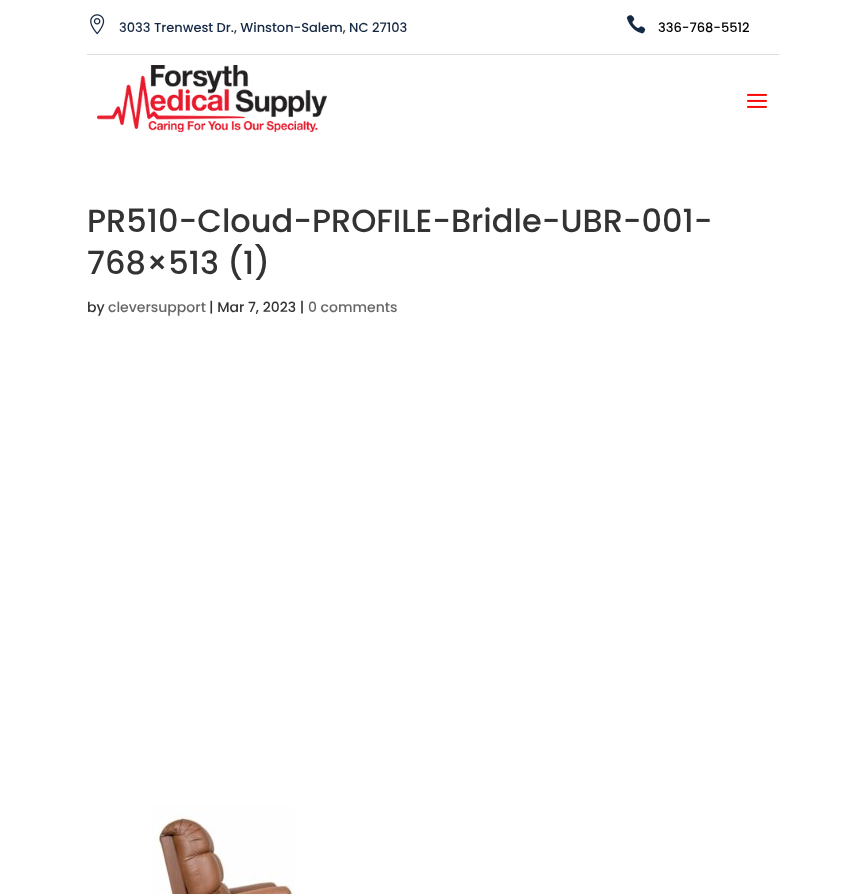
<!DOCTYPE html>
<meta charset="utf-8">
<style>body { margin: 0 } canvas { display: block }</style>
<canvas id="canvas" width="866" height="894"></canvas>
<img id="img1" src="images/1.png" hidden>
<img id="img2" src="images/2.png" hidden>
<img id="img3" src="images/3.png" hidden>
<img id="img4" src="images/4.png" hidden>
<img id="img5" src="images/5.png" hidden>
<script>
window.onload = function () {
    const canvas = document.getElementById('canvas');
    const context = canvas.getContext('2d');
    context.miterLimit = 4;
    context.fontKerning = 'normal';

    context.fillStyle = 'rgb(255, 255, 255)';
    context.fillRect(0, 0, 866, 894);
    context.fillStyle = 'rgb(221, 221, 221)';
    context.fillRect(87, 54, 692, 1);
    context.drawImage(document.getElementById('img1'), 90, 14, 15, 21);
    context.drawImage(document.getElementById('img2'), 626, 15, 20, 19);
    context.drawImage(document.getElementById('img3'), 97, 65, 230, 67);
    context.drawImage(document.getElementById('img4'), 747, 93, 20, 15);
    context.drawImage(document.getElementById('img5'), 152, 805, 143, 89);
    context.font = '500 13px Poppins';
    context.fillStyle = 'rgb(22, 41, 68)';
    context.fillText('3033 Trenwest Dr., Winston-Salem, NC 27103', 119, 32);
    context.fillStyle = 'rgb(0, 0, 0)';
    context.fillText('336-768-5512', 658, 32);
    context.font = '500 32px Poppins';
    context.fillStyle = 'rgb(51, 51, 51)';
    context.fillText('PR510-Cloud-PROFILE-Bridle-UBR-001-', 87, 232);
    context.fillText('768×513 (1)', 87, 274);
    context.font = '500 14px Poppins';
    context.fillText('by', 87, 312);
    context.fillStyle = 'rgb(102, 102, 102)';
    context.fillText('cleversupport', 108, 312);
    context.fillStyle = 'rgb(51, 51, 51)';
    context.fillText('| Mar 7, 2023 |', 209, 312);
    context.fillStyle = 'rgb(102, 102, 102)';
    context.fillText('0 comments', 308, 312);
};
</script>
